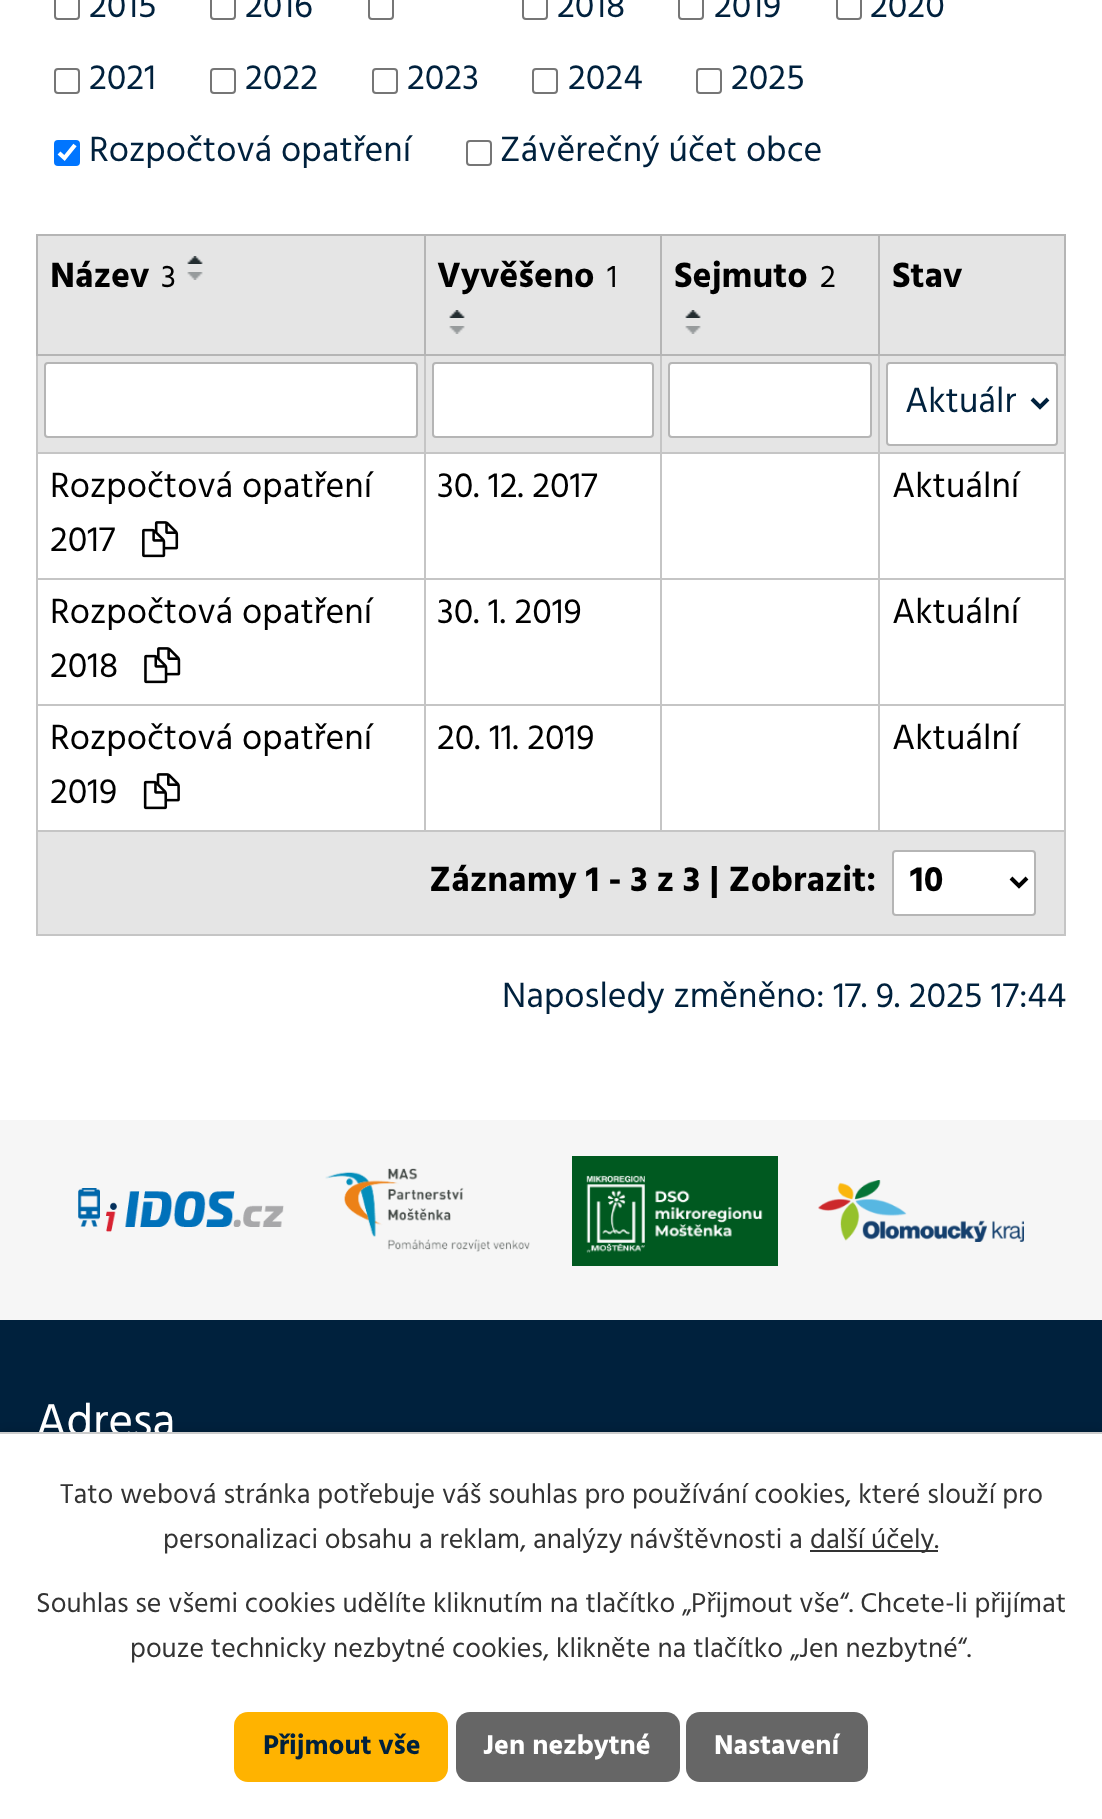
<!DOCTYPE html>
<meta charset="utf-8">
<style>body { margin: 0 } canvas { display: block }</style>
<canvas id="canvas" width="1102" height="1819"></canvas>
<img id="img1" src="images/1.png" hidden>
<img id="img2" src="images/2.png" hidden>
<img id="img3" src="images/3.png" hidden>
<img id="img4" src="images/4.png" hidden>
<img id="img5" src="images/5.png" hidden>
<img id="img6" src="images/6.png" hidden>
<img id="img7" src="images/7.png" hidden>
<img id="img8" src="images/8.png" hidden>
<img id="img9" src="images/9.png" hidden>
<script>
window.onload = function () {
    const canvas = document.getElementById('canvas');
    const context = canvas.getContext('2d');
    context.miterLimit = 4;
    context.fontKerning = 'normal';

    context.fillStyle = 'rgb(255, 255, 255)';
    context.fillRect(0, 0, 1102, 1819);
    context.beginPath();
    context.roundRect(55, -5, 24, 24, 3);
    context.strokeStyle = 'rgb(118, 118, 118)';
    context.lineWidth = 2;
    context.stroke();
    context.beginPath();
    context.roundRect(211, -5, 24, 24, 3);
    context.stroke();
    context.beginPath();
    context.roundRect(369, -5, 24, 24, 3);
    context.stroke();
    context.beginPath();
    context.roundRect(523, -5, 24, 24, 3);
    context.stroke();
    context.beginPath();
    context.roundRect(679, -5, 24, 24, 3);
    context.stroke();
    context.beginPath();
    context.roundRect(837, -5, 24, 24, 3);
    context.stroke();
    context.beginPath();
    context.roundRect(55, 69, 24, 24, 3);
    context.stroke();
    context.beginPath();
    context.roundRect(211, 69, 24, 24, 3);
    context.stroke();
    context.beginPath();
    context.roundRect(373, 69, 24, 24, 3);
    context.stroke();
    context.beginPath();
    context.roundRect(533, 69, 24, 24, 3);
    context.stroke();
    context.beginPath();
    context.roundRect(697, 69, 24, 24, 3);
    context.stroke();
    context.fillStyle = 'rgb(0, 117, 255)';
    context.beginPath();
    context.roundRect(54, 140, 26, 26, 4);
    context.fill();
    context.beginPath();
    context.moveTo(59, 153);
    context.lineTo(64.5, 158);
    context.lineTo(75, 145);
    context.strokeStyle = 'rgb(255, 255, 255)';
    context.lineWidth = 4.2;
    context.stroke();
    context.beginPath();
    context.roundRect(467, 141, 24, 24, 3);
    context.strokeStyle = 'rgb(118, 118, 118)';
    context.lineWidth = 2;
    context.stroke();
    context.fillStyle = 'rgb(229, 229, 229)';
    context.fillRect(38, 236, 386, 118);
    context.fillStyle = 'rgb(181, 181, 181)';
    context.fillRect(878, 234, 188, 2);
    context.fillStyle = 'rgb(197, 197, 197)';
    context.fillRect(878, 452, 188, 2);
    context.fillRect(878, 578, 188, 2);
    context.fillRect(878, 704, 188, 2);
    context.fillRect(1064, 704, 2, 128);
    context.fillRect(1064, 578, 2, 128);
    context.fillRect(1064, 354, 2, 226);
    context.fillStyle = 'rgb(181, 181, 181)';
    context.fillRect(1064, 234, 2, 122);
    context.fillStyle = 'rgb(229, 229, 229)';
    context.fillRect(38, 356, 1026, 96);
    context.fillStyle = 'rgb(197, 197, 197)';
    context.fillRect(878, 830, 188, 2);
    context.fillRect(878, 704, 2, 128);
    context.fillRect(660, 704, 220, 2);
    context.fillRect(878, 578, 2, 128);
    context.fillRect(660, 578, 220, 2);
    context.fillRect(878, 452, 2, 128);
    context.fillRect(660, 452, 220, 2);
    context.fillRect(878, 354, 2, 100);
    context.fillStyle = 'rgb(181, 181, 181)';
    context.fillRect(878, 354, 188, 2);
    context.fillRect(878, 234, 2, 122);
    context.fillRect(660, 234, 220, 2);
    context.fillStyle = 'rgb(197, 197, 197)';
    context.fillRect(660, 830, 220, 2);
    context.fillRect(660, 704, 2, 128);
    context.fillRect(424, 704, 238, 2);
    context.fillRect(660, 578, 2, 128);
    context.fillRect(424, 578, 238, 2);
    context.fillRect(660, 452, 2, 128);
    context.fillRect(424, 452, 238, 2);
    context.fillRect(660, 354, 2, 100);
    context.fillStyle = 'rgb(181, 181, 181)';
    context.fillRect(660, 354, 220, 2);
    context.fillRect(660, 234, 2, 122);
    context.fillRect(424, 234, 238, 2);
    context.fillStyle = 'rgb(197, 197, 197)';
    context.fillRect(424, 830, 238, 2);
    context.fillRect(424, 704, 2, 128);
    context.fillRect(36, 704, 390, 2);
    context.fillRect(424, 578, 2, 128);
    context.fillRect(36, 578, 390, 2);
    context.fillRect(424, 452, 2, 128);
    context.fillRect(36, 452, 390, 2);
    context.fillRect(424, 354, 2, 100);
    context.fillStyle = 'rgb(181, 181, 181)';
    context.fillRect(424, 354, 238, 2);
    context.fillRect(424, 234, 2, 122);
    context.fillRect(36, 234, 390, 2);
    context.fillStyle = 'rgb(197, 197, 197)';
    context.fillRect(36, 830, 390, 2);
    context.fillRect(36, 704, 2, 128);
    context.fillRect(36, 578, 2, 128);
    context.fillRect(36, 354, 2, 226);
    context.fillStyle = 'rgb(181, 181, 181)';
    context.fillRect(36, 354, 390, 2);
    context.fillRect(36, 234, 2, 122);
    context.drawImage(document.getElementById('img1'), 187, 256, 16, 8);
    context.drawImage(document.getElementById('img2'), 187, 272, 16, 8);
    context.fillStyle = 'rgb(229, 229, 229)';
    context.fillRect(426, 236, 234, 118);
    context.drawImage(document.getElementById('img1'), 449, 310, 16, 8);
    context.drawImage(document.getElementById('img2'), 449, 326, 16, 8);
    context.fillRect(662, 236, 216, 118);
    context.drawImage(document.getElementById('img1'), 685, 310, 16, 8);
    context.drawImage(document.getElementById('img2'), 685, 326, 16, 8);
    context.fillRect(880, 236, 184, 118);
    context.fillStyle = 'rgb(255, 255, 255)';
    context.beginPath();
    context.roundRect(45, 363, 372, 74, 3);
    context.fill();
    context.strokeStyle = 'rgb(181, 181, 181)';
    context.stroke();
    context.beginPath();
    context.roundRect(433, 363, 220, 74, 3);
    context.fill();
    context.stroke();
    context.beginPath();
    context.roundRect(669, 363, 202, 74, 3);
    context.fill();
    context.stroke();
    context.beginPath();
    context.roundRect(887, 363, 170, 82, 3);
    context.fill();
    context.stroke();
    context.beginPath();
    context.moveTo(1032, 399);
    context.lineTo(1040, 407);
    context.lineTo(1048, 399);
    context.strokeStyle = 'rgb(0, 33, 61)';
    context.lineWidth = 4;
    context.stroke();
    context.drawImage(document.getElementById('img3'), 142, 521, 37, 37);
    context.drawImage(document.getElementById('img4'), 144, 647, 37, 37);
    context.drawImage(document.getElementById('img5'), 143, 773, 37, 37);
    context.fillStyle = 'rgb(229, 229, 229)';
    context.fillRect(38, 832, 1026, 102);
    context.fillStyle = 'rgb(197, 197, 197)';
    context.fillRect(1064, 830, 2, 106);
    context.fillRect(36, 934, 1030, 2);
    context.fillRect(36, 830, 2, 106);
    context.fillStyle = 'rgb(255, 255, 255)';
    context.beginPath();
    context.roundRect(893, 851, 142, 64, 3);
    context.fill();
    context.strokeStyle = 'rgb(181, 181, 181)';
    context.lineWidth = 2;
    context.stroke();
    context.beginPath();
    context.moveTo(1011, 878);
    context.lineTo(1019, 886);
    context.lineTo(1027, 878);
    context.strokeStyle = 'rgb(0, 0, 0)';
    context.lineWidth = 4;
    context.stroke();
    context.fillStyle = 'rgb(0, 33, 61)';
    context.fillRect(0, 1320, 1102, 112);
    context.fillStyle = 'rgb(246, 246, 246)';
    context.fillRect(0, 1120, 1102, 200);
    context.drawImage(document.getElementById('img6'), 78, 1188, 206, 44);
    context.drawImage(document.getElementById('img7'), 325, 1168, 205, 84);
    context.drawImage(document.getElementById('img8'), 572, 1156, 206, 110);
    context.drawImage(document.getElementById('img9'), 818, 1180, 206, 62);
    context.fillStyle = 'rgba(0, 0, 0, 0.2)';
    context.filter = 'blur(5px)';
    context.beginPath();
    context.rect(0, 1432, 1102, 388);
    context.fill();
    context.filter = 'none';
    context.fillStyle = 'rgb(255, 255, 255)';
    context.fillRect(0, 1434, 1102, 385);
    context.fillStyle = 'rgb(51, 51, 51)';
    context.fillRect(810, 1550, 128, 2);
    context.fillStyle = 'rgb(255, 179, 0)';
    context.beginPath();
    context.roundRect(234, 1712, 214, 70, 14);
    context.fill();
    context.fillStyle = 'rgb(102, 102, 102)';
    context.beginPath();
    context.roundRect(456, 1712, 224, 70, 14);
    context.fill();
    context.beginPath();
    context.roundRect(686, 1712, 182, 70, 14);
    context.fill();
    context.font = '36px Hind';
    context.fillStyle = 'rgb(0, 33, 61)';
    context.fillText('2015', 89, 17);
    context.fillText('2016', 245, 17);
    context.fillText('2018', 557, 17);
    context.fillText('2019', 714, 17);
    context.fillText('2020', 870, 17);
    context.fillText('2021', 89, 89);
    context.fillText('2022', 245, 89);
    context.fillText('2023', 407, 89);
    context.fillText('2024', 568, 89);
    context.fillText('2025', 731, 89);
    context.fillText('Rozpočtová opatření', 89, 161);
    context.fillText('Závěrečný účet obce', 500, 161);
    context.font = 'bold 36px Hind';
    context.fillStyle = 'rgb(0, 0, 0)';
    context.fillText('Název', 50, 287);
    context.font = '32px Hind';
    context.fillText('3', 161, 287);
    context.font = 'bold 36px Hind';
    context.fillText('Vyvěšeno', 437, 287);
    context.font = '32px Hind';
    context.fillText('1', 607, 287);
    context.font = 'bold 36px Hind';
    context.fillText('Sejmuto', 674, 287);
    context.font = '32px Hind';
    context.fillText('2', 820, 287);
    context.font = 'bold 36px Hind';
    context.fillText('Stav', 892, 287);
    context.save();
    context.beginPath();
    context.rect(906, 372, 110, 62);
    context.clip();
    context.font = '36px Hind';
    context.fillStyle = 'rgb(0, 33, 61)';
    context.fillText('Aktuáln', 905, 412);
    context.restore();
    context.font = '36px Hind';
    context.fillText('Rozpočtová opatření', 50, 497);
    context.fillText('2017', 50, 551);
    context.fillText('30. 12. 2017', 437, 497);
    context.fillText('Aktuální', 892, 497);
    context.fillText('Rozpočtová opatření', 50, 623);
    context.fillText('2018', 50, 677);
    context.fillText('30. 1. 2019', 437, 623);
    context.fillText('Aktuální', 892, 623);
    context.fillText('Rozpočtová opatření', 50, 749);
    context.fillText('2019', 50, 803);
    context.fillText('20. 11. 2019', 437, 749);
    context.fillText('Aktuální', 892, 749);
    context.font = 'bold 36px Hind';
    context.fillText('Záznamy 1 - 3 z 3 | Zobrazit:', 429, 891);
    context.fillText('10', 910, 891);
    context.font = '36px Hind';
    context.fillStyle = 'rgb(0, 33, 61)';
    context.fillText('Naposledy změněno: 17. 9. 2025 17:44', 502, 1007);
    context.font = '47px Hind';
    context.fillStyle = 'rgb(255, 255, 255)';
    context.fillText('Adresa', 36, 1436);
    context.fillStyle = 'rgb(204, 204, 204)';
    context.fillRect(0, 1432, 1102, 2);
    context.font = '28px Hind';
    context.fillStyle = 'rgb(51, 51, 51)';
    context.fillText('Tato webová stránka potřebuje váš souhlas pro používání cookies, které slouží pro', 60, 1503);
    context.fillText('personalizaci obsahu a reklam, analýzy návštěvnosti a', 163, 1548);
    context.fillText('další účely.', 810, 1548);
    context.fillText('Souhlas se všemi cookies udělíte kliknutím na tlačítko „Přijmout vše“. Chcete-li přijímat', 36, 1612);
    context.fillText('pouze technicky nezbytné cookies, klikněte na tlačítko „Jen nezbytné“.', 130, 1657);
    context.font = 'bold 28px Hind';
    context.fillStyle = 'rgb(0, 33, 61)';
    context.fillText('Přijmout vše', 263, 1754);
    context.fillStyle = 'rgb(255, 255, 255)';
    context.fillText('Jen nezbytné', 483, 1754);
    context.fillText('Nastavení', 714, 1754);
};
</script>
